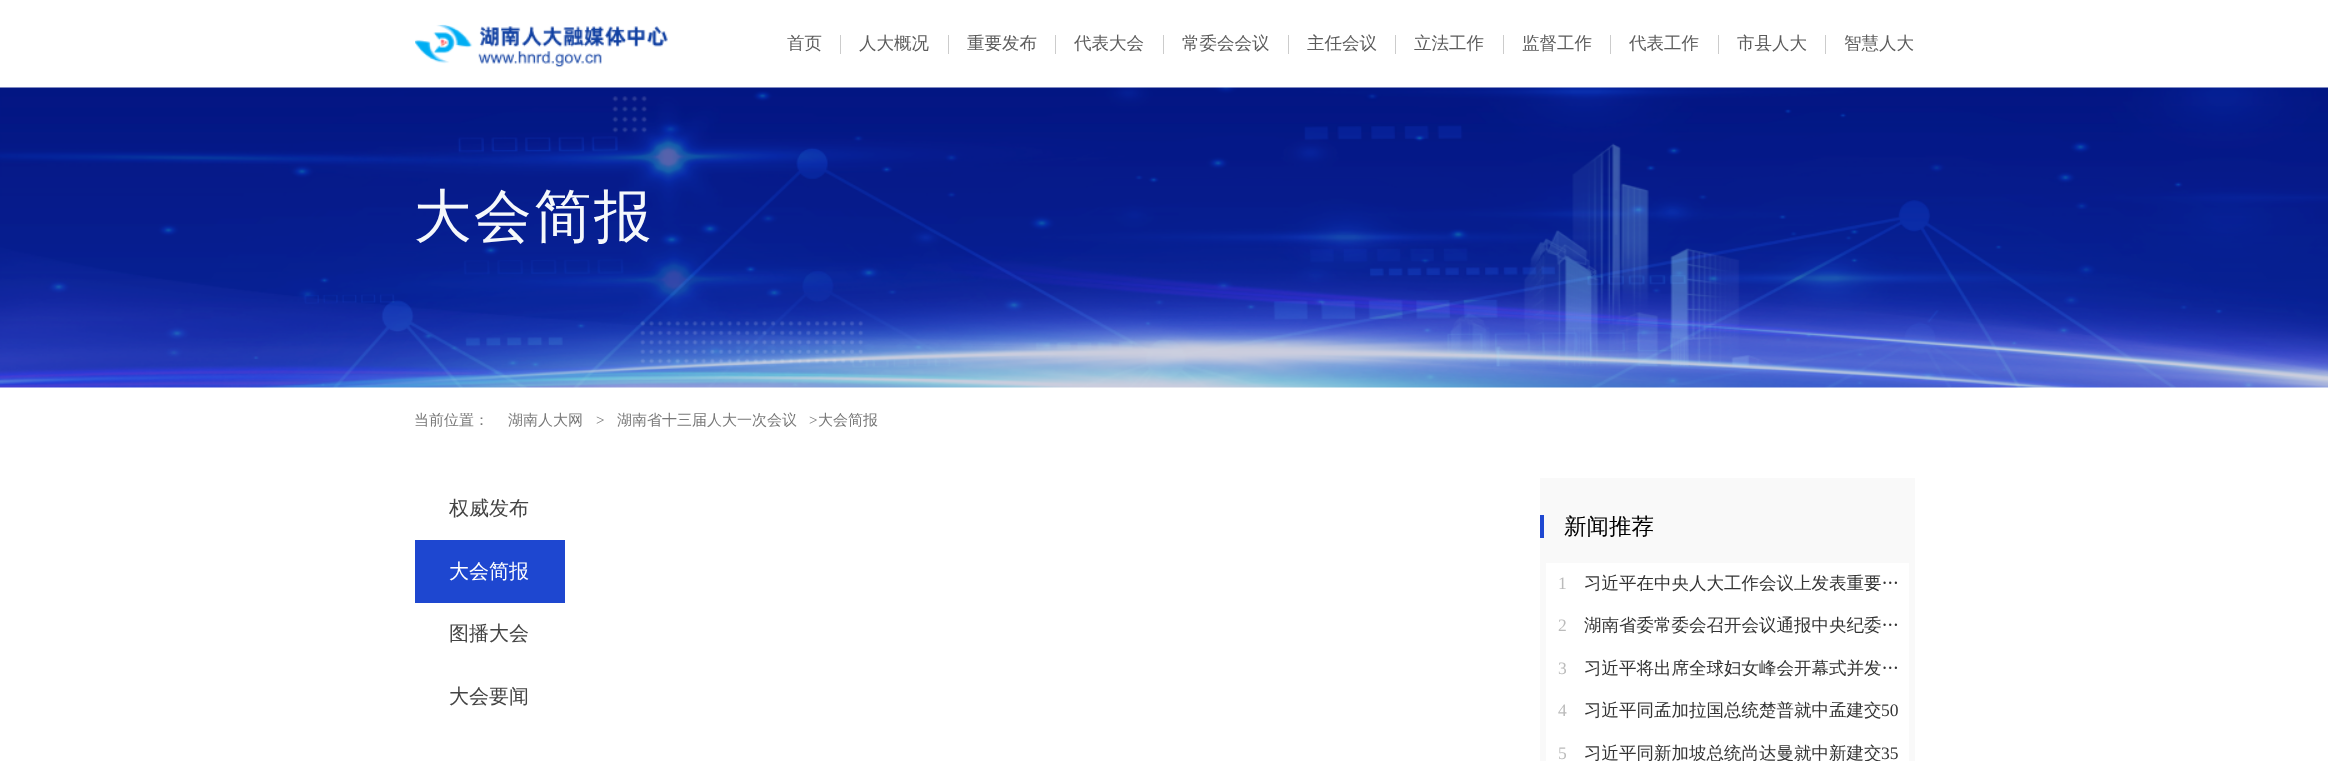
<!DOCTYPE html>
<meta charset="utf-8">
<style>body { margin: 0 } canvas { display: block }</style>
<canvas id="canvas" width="2328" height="761"></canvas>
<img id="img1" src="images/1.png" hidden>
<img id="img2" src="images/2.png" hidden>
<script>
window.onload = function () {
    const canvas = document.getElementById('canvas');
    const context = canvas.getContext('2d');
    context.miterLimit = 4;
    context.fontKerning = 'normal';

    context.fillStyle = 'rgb(255, 255, 255)';
    context.fillRect(0, 0, 2328, 761);
    context.drawImage(document.getElementById('img1'), 415, 24, 253, 44);
    context.fillStyle = 'rgb(204, 204, 204)';
    context.fillRect(840, 35, 1, 19);
    context.fillRect(948, 35, 1, 19);
    context.fillRect(1055, 35, 1, 19);
    context.fillRect(1163, 35, 1, 19);
    context.fillRect(1288, 35, 1, 19);
    context.fillRect(1395, 35, 1, 19);
    context.fillRect(1503, 35, 1, 19);
    context.fillRect(1610, 35, 1, 19);
    context.fillRect(1718, 35, 1, 19);
    context.fillRect(1825, 35, 1, 19);
    context.drawImage(document.getElementById('img2'), 0, 87, 2328, 301);
    context.fillStyle = 'rgb(30, 71, 208)';
    context.fillRect(415, 540, 150, 63);
    context.fillStyle = 'rgb(249, 249, 249)';
    context.fillRect(1540, 478, 375, 283);
    context.fillStyle = 'rgb(31, 72, 209)';
    context.fillRect(1540, 515, 4, 23);
    context.fillStyle = 'rgb(255, 255, 255)';
    context.fillRect(1546, 563, 363, 198);
    context.font = '500 17.5px WenQuanYi Zen Hei';
    context.fillStyle = 'rgb(92, 92, 92)';
    context.fillText('首页', 787, 49);
    context.fillText('人大概况', 859, 49);
    context.fillText('重要发布', 967, 49);
    context.fillText('代表大会', 1074, 49);
    context.fillText('常委会会议', 1182, 49);
    context.fillText('主任会议', 1307, 49);
    context.fillText('立法工作', 1414, 49);
    context.fillText('监督工作', 1522, 49);
    context.fillText('代表工作', 1629, 49);
    context.fillText('市县人大', 1737, 49);
    context.fillText('智慧人大', 1844, 49);
    context.letterSpacing = '2.5px';
    context.font = '500 57.5px WenQuanYi Zen Hei';
    context.fillStyle = 'rgb(245, 248, 251)';
    context.fillText('大会简报', 414, 236);
    context.letterSpacing = '0px';
    context.font = '500 15px WenQuanYi Zen Hei';
    context.fillStyle = 'rgb(120, 120, 120)';
    context.fillText('当前位置：', 414, 425);
    context.fillText('湖南人大网', 508, 425);
    context.font = '15px Liberation Serif';
    context.fillText('>', 596, 425);
    context.font = '500 15px WenQuanYi Zen Hei';
    context.fillText('湖南省十三届人大一次会议', 617, 425);
    context.font = '15px Liberation Serif';
    context.fillText('>', 809, 425);
    context.font = '500 15px WenQuanYi Zen Hei';
    context.fillText('大会简报', 818, 425);
    context.font = '500 20px WenQuanYi Zen Hei';
    context.fillStyle = 'rgb(68, 68, 68)';
    context.fillText('权威发布', 449, 515);
    context.fillStyle = 'rgb(255, 255, 255)';
    context.fillText('大会简报', 449, 578);
    context.fillStyle = 'rgb(68, 68, 68)';
    context.fillText('图播大会', 449, 640);
    context.fillText('大会要闻', 449, 703);
    context.font = '500 22.5px WenQuanYi Zen Hei';
    context.fillStyle = 'rgb(0, 0, 0)';
    context.fillText('新闻推荐', 1564, 534);
    context.font = '17.5px Liberation Serif';
    context.fillStyle = 'rgb(187, 187, 187)';
    context.fillText('1', 1558, 589);
    context.wordSpacing = '-1px';
    context.font = '500 17.5px WenQuanYi Zen Hei';
    context.fillStyle = 'rgb(51, 51, 51)';
    context.fillText('习近平在中央人大工作会议上发表重要…', 1584, 589);
    context.wordSpacing = '0px';
    context.font = '17.5px Liberation Serif';
    context.fillStyle = 'rgb(187, 187, 187)';
    context.fillText('2', 1558, 631);
    context.font = '500 17.5px WenQuanYi Zen Hei';
    context.fillStyle = 'rgb(51, 51, 51)';
    context.fillText('湖南省委常委会召开会议通报中央纪委…', 1584, 631);
    context.font = '17.5px Liberation Serif';
    context.fillStyle = 'rgb(187, 187, 187)';
    context.fillText('3', 1558, 674);
    context.font = '500 17.5px WenQuanYi Zen Hei';
    context.fillStyle = 'rgb(51, 51, 51)';
    context.fillText('习近平将出席全球妇女峰会开幕式并发…', 1584, 674);
    context.font = '17.5px Liberation Serif';
    context.fillStyle = 'rgb(187, 187, 187)';
    context.fillText('4', 1558, 716);
    context.font = '500 17.5px WenQuanYi Zen Hei';
    context.fillStyle = 'rgb(51, 51, 51)';
    context.fillText('习近平同孟加拉国总统楚普就中孟建交', 1584, 716);
    context.font = '17.5px Liberation Serif';
    context.fillText('50', 1881, 716);
    context.fillStyle = 'rgb(187, 187, 187)';
    context.fillText('5', 1558, 759);
    context.font = '500 17.5px WenQuanYi Zen Hei';
    context.fillStyle = 'rgb(51, 51, 51)';
    context.fillText('习近平同新加坡总统尚达曼就中新建交', 1584, 759);
    context.font = '17.5px Liberation Serif';
    context.fillText('35', 1881, 759);
};
</script>
